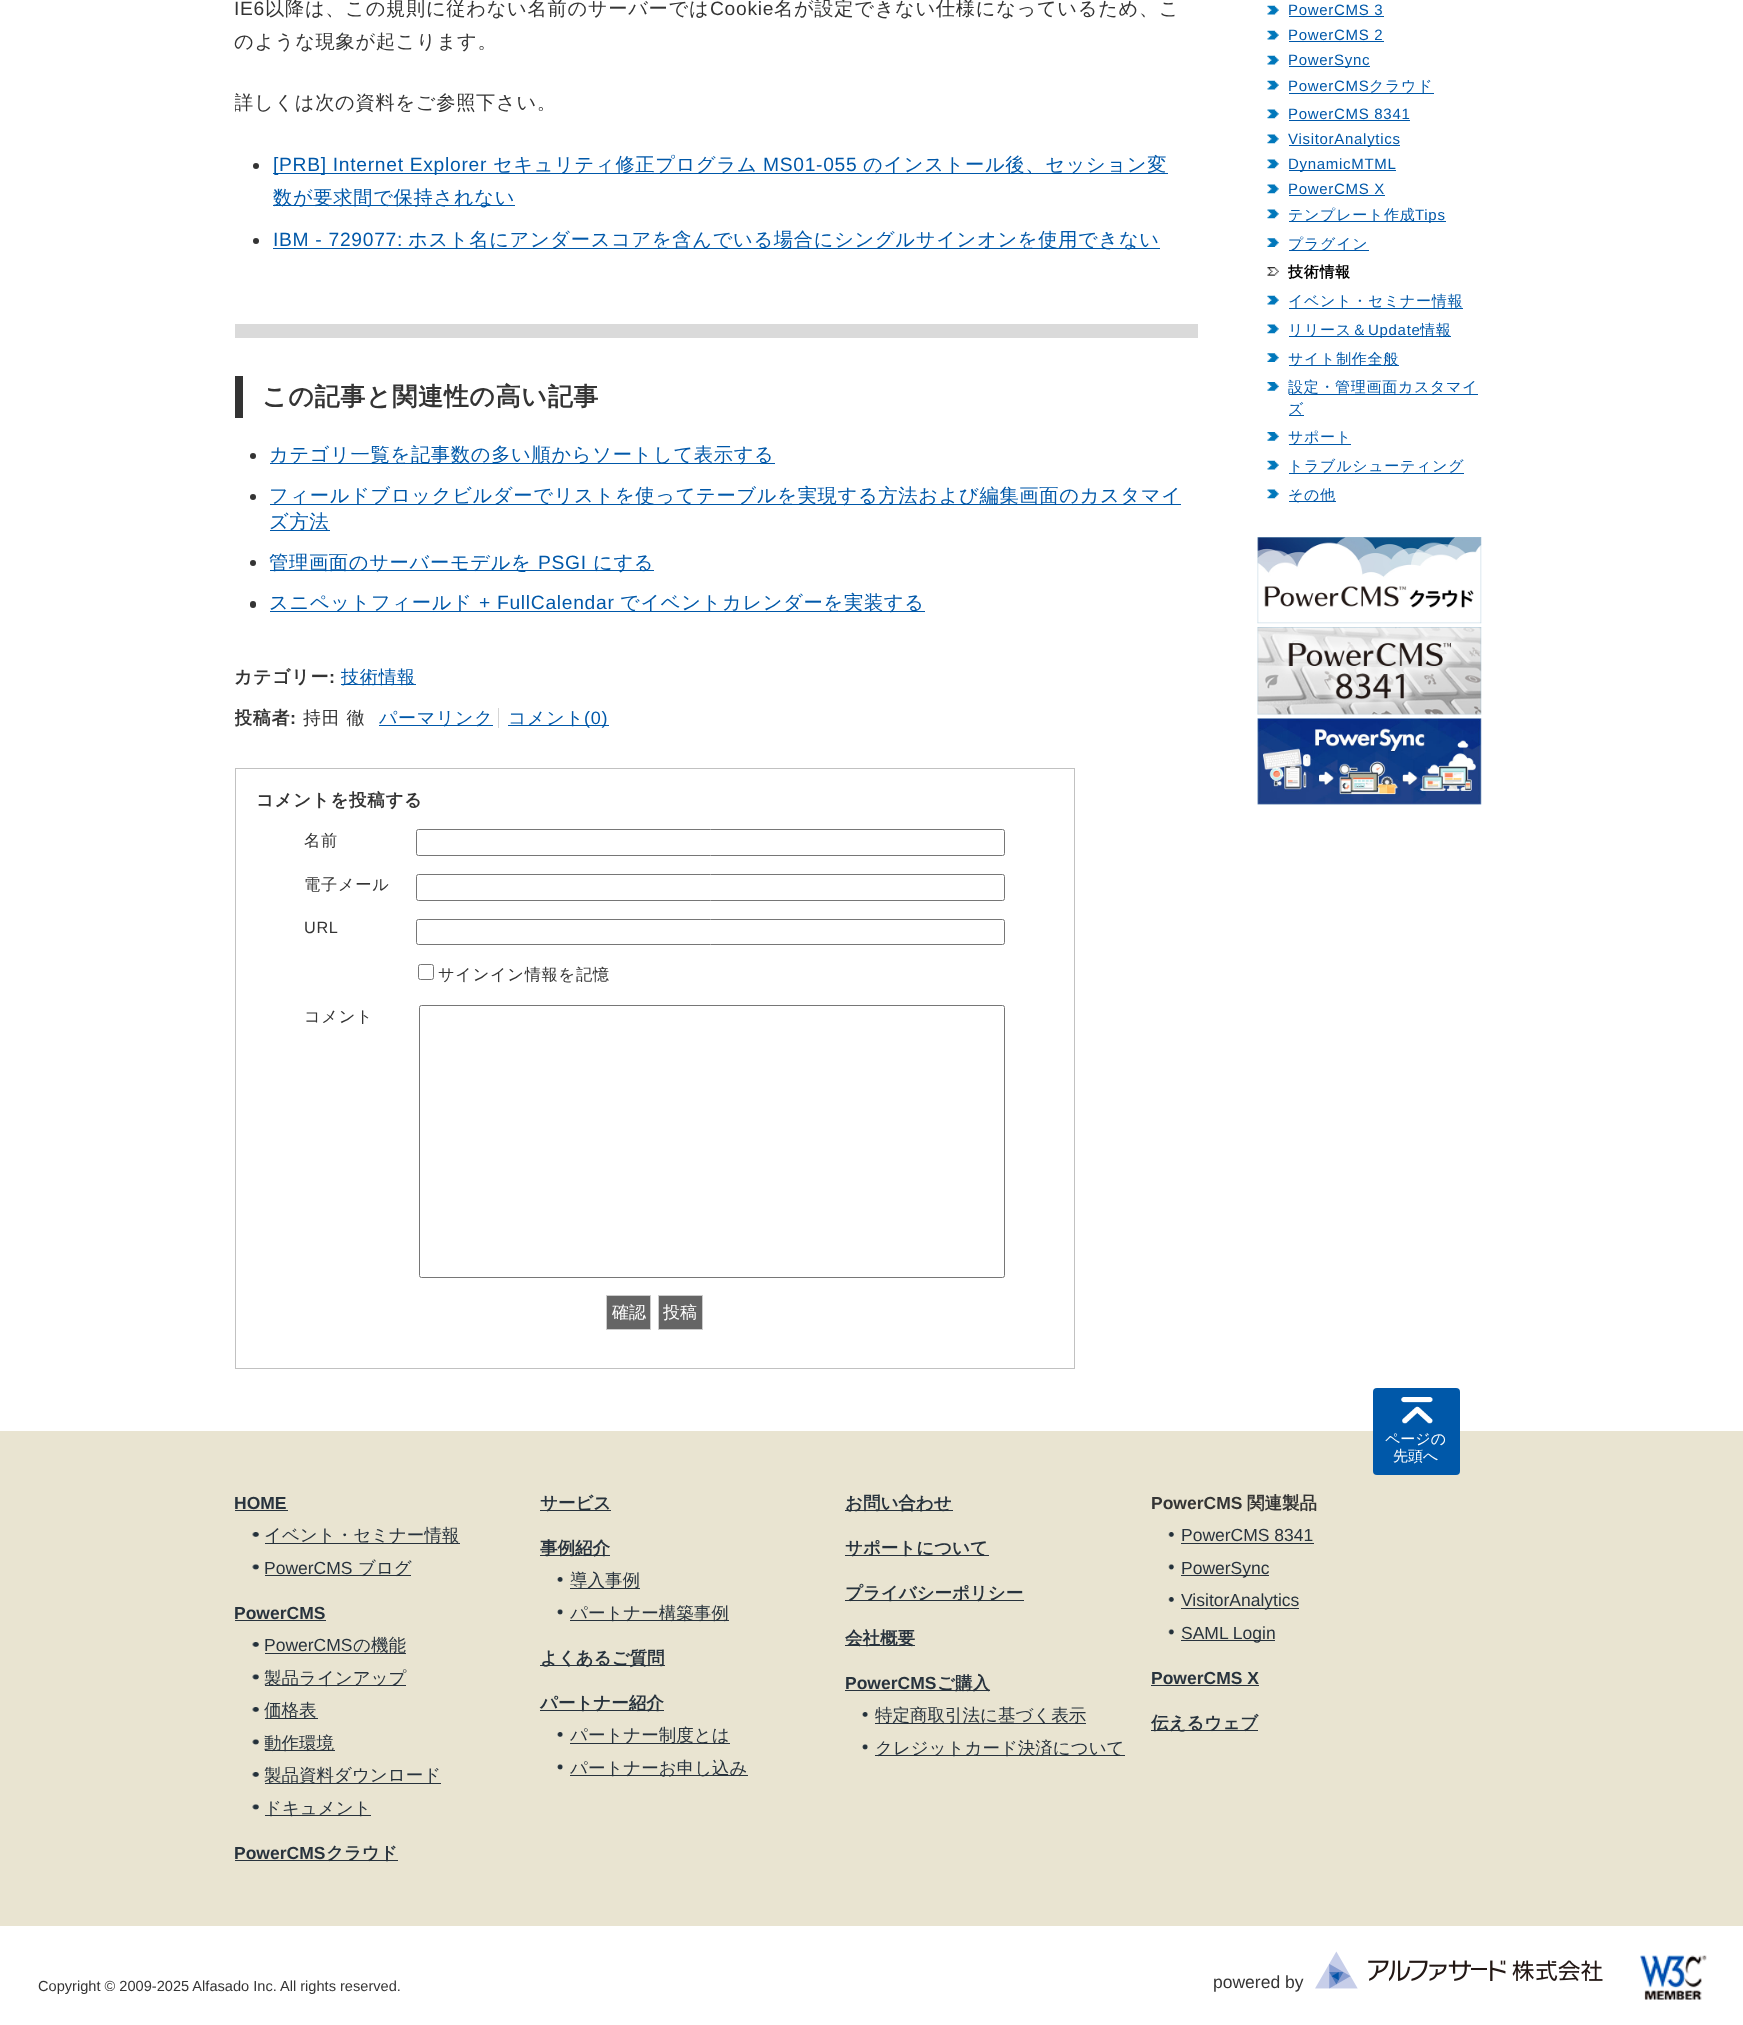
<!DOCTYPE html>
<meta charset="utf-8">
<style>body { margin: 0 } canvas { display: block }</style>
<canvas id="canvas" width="1743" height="2025"></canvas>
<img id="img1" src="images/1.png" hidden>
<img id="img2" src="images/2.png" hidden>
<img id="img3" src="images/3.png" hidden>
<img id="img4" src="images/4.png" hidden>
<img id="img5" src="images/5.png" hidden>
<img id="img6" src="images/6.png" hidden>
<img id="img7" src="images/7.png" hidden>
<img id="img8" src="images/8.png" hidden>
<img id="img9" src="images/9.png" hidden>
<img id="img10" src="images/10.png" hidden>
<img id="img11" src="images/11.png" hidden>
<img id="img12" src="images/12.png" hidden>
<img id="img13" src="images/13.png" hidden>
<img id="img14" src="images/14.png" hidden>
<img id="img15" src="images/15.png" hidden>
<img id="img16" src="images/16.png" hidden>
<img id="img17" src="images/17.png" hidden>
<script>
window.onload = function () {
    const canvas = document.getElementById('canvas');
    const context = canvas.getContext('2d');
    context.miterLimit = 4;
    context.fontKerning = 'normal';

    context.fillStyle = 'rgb(255, 255, 255)';
    context.fillRect(0, 0, 1743, 2025);
    context.fillStyle = 'rgb(52, 52, 52)';
    context.beginPath();
    context.arc(256, 166, 3, 0, 2 * Math.PI);
    context.fill();
    context.fillStyle = 'rgb(0, 88, 169)';
    context.fillRect(273, 173, 895, 1);
    context.fillRect(273, 205, 242, 1);
    context.fillStyle = 'rgb(52, 52, 52)';
    context.beginPath();
    context.arc(256, 241, 3, 0, 2 * Math.PI);
    context.fill();
    context.fillStyle = 'rgb(0, 88, 169)';
    context.fillRect(273, 248, 887, 1);
    context.fillStyle = 'rgb(218, 218, 218)';
    context.fillRect(235, 324, 963, 14);
    context.fillStyle = 'rgb(51, 51, 51)';
    context.fillRect(235, 376, 8, 42);
    context.fillStyle = 'rgb(52, 52, 52)';
    context.beginPath();
    context.arc(253, 456, 3, 0, 2 * Math.PI);
    context.fill();
    context.fillStyle = 'rgb(0, 88, 169)';
    context.fillRect(270, 463, 505, 1);
    context.fillStyle = 'rgb(52, 52, 52)';
    context.beginPath();
    context.arc(253, 497, 3, 0, 2 * Math.PI);
    context.fill();
    context.fillStyle = 'rgb(0, 88, 169)';
    context.fillRect(270, 504, 911, 1);
    context.fillRect(270, 530, 60, 1);
    context.fillStyle = 'rgb(52, 52, 52)';
    context.beginPath();
    context.arc(253, 563, 3, 0, 2 * Math.PI);
    context.fill();
    context.fillStyle = 'rgb(0, 88, 169)';
    context.fillRect(270, 570, 384, 1);
    context.fillStyle = 'rgb(52, 52, 52)';
    context.beginPath();
    context.roundRect(250, 601, 6, 7, 3);
    context.fill();
    context.fillStyle = 'rgb(0, 88, 169)';
    context.fillRect(270, 611, 655, 1);
    context.fillRect(341, 684, 75, 1);
    context.fillRect(379, 725, 114, 1);
    context.fillStyle = 'rgb(213, 213, 213)';
    context.fillRect(498, 708, 1, 20);
    context.fillStyle = 'rgb(0, 88, 169)';
    context.fillRect(508, 725, 101, 1);
    context.strokeStyle = 'rgb(193, 193, 193)';
    context.strokeRect(235.5, 768.5, 839, 600);
    context.beginPath();
    context.roundRect(416.5, 829.5, 588, 26, 2);
    context.strokeStyle = 'rgb(118, 118, 118)';
    context.stroke();
    context.beginPath();
    context.roundRect(416.5, 874.5, 588, 26, 2);
    context.stroke();
    context.beginPath();
    context.roundRect(416.5, 919.5, 588, 25, 2);
    context.stroke();
    context.beginPath();
    context.roundRect(418.5, 964.5, 15, 15, 2);
    context.stroke();
    context.beginPath();
    context.roundRect(419.5, 1005.5, 585, 272, 2);
    context.stroke();
    context.fillStyle = 'rgb(101, 101, 101)';
    context.beginPath();
    context.rect(606.5, 1295.5, 44, 34);
    context.fill();
    context.strokeStyle = 'rgb(204, 204, 204)';
    context.stroke();
    context.beginPath();
    context.rect(658.5, 1295.5, 44, 34);
    context.fill();
    context.stroke();
    context.drawImage(document.getElementById('img1'), 1267, 5, 12, 10);
    context.fillStyle = 'rgb(0, 88, 169)';
    context.fillRect(1289, 16, 95, 1);
    context.drawImage(document.getElementById('img1'), 1267, 30, 12, 10);
    context.fillRect(1289, 41, 95, 1);
    context.drawImage(document.getElementById('img1'), 1267, 55, 12, 10);
    context.fillRect(1289, 66, 81, 1);
    context.drawImage(document.getElementById('img1'), 1267, 80, 12, 10);
    context.fillRect(1289, 93, 145, 1);
    context.drawImage(document.getElementById('img2'), 1267, 109, 12, 10);
    context.fillRect(1289, 120, 121, 1);
    context.drawImage(document.getElementById('img2'), 1267, 134, 12, 10);
    context.fillRect(1289, 145, 111, 1);
    context.drawImage(document.getElementById('img2'), 1267, 159, 12, 10);
    context.fillRect(1289, 170, 107, 1);
    context.drawImage(document.getElementById('img2'), 1267, 184, 12, 10);
    context.fillRect(1289, 195, 96, 1);
    context.drawImage(document.getElementById('img2'), 1267, 209, 12, 10);
    context.fillRect(1289, 221, 157, 1);
    context.drawImage(document.getElementById('img3'), 1267, 238, 12, 9);
    context.fillRect(1289, 250, 80, 1);
    context.drawImage(document.getElementById('img4'), 1267, 267, 12, 9);
    context.drawImage(document.getElementById('img1'), 1267, 295, 12, 10);
    context.fillRect(1289, 308, 174, 1);
    context.drawImage(document.getElementById('img2'), 1267, 324, 12, 10);
    context.fillRect(1289, 336, 162, 1);
    context.drawImage(document.getElementById('img3'), 1267, 353, 12, 9);
    context.fillRect(1289, 365, 110, 1);
    context.drawImage(document.getElementById('img5'), 1267, 382, 12, 9);
    context.fillRect(1289, 394, 189, 1);
    context.fillRect(1289, 415, 15, 1);
    context.drawImage(document.getElementById('img5'), 1267, 432, 12, 9);
    context.fillRect(1289, 444, 62, 1);
    context.drawImage(document.getElementById('img1'), 1267, 460, 12, 10);
    context.fillRect(1289, 473, 175, 1);
    context.drawImage(document.getElementById('img2'), 1267, 489, 12, 10);
    context.fillRect(1289, 501, 47, 1);
    context.drawImage(document.getElementById('img6'), 1257, 537, 225, 87);
    context.drawImage(document.getElementById('img7'), 1257, 627, 225, 88);
    context.drawImage(document.getElementById('img8'), 1257, 718, 225, 87);
    context.fillStyle = 'rgb(233, 228, 209)';
    context.fillRect(0, 1431, 1743, 495);
    context.fillStyle = 'rgb(0, 88, 169)';
    context.beginPath();
    context.roundRect(1373, 1388, 87, 87, 4);
    context.fill();
    context.drawImage(document.getElementById('img9'), 1401, 1397, 32, 27);
    context.fillStyle = 'rgb(40, 51, 61)';
    context.fillRect(235, 1510, 53, 1);
    context.drawImage(document.getElementById('img10'), 252, 1532, 7, 5);
    context.fillRect(265, 1543, 195, 1);
    context.drawImage(document.getElementById('img11'), 252, 1564, 7, 6);
    context.fillRect(265, 1575, 146, 1);
    context.fillRect(235, 1620, 91, 1);
    context.drawImage(document.getElementById('img10'), 252, 1642, 7, 5);
    context.fillRect(265, 1653, 141, 1);
    context.drawImage(document.getElementById('img11'), 252, 1674, 7, 6);
    context.fillRect(265, 1685, 141, 1);
    context.drawImage(document.getElementById('img10'), 252, 1707, 7, 5);
    context.fillRect(265, 1718, 53, 1);
    context.drawImage(document.getElementById('img11'), 252, 1739, 7, 6);
    context.fillRect(265, 1750, 70, 1);
    context.drawImage(document.getElementById('img10'), 252, 1772, 7, 5);
    context.fillRect(265, 1783, 176, 1);
    context.drawImage(document.getElementById('img11'), 252, 1804, 7, 6);
    context.fillRect(265, 1815, 106, 1);
    context.fillRect(235, 1860, 163, 1);
    context.fillRect(540, 1510, 71, 1);
    context.fillRect(540, 1555, 70, 1);
    context.drawImage(document.getElementById('img12'), 557, 1577, 6, 5);
    context.fillRect(570, 1588, 70, 1);
    context.drawImage(document.getElementById('img13'), 557, 1609, 6, 6);
    context.fillRect(570, 1620, 159, 1);
    context.fillRect(540, 1665, 125, 1);
    context.fillRect(540, 1710, 124, 1);
    context.drawImage(document.getElementById('img12'), 557, 1732, 6, 5);
    context.fillRect(570, 1743, 160, 1);
    context.drawImage(document.getElementById('img13'), 557, 1764, 6, 6);
    context.fillRect(570, 1775, 178, 1);
    context.fillRect(845, 1510, 108, 1);
    context.fillRect(845, 1555, 144, 1);
    context.fillRect(845, 1600, 179, 1);
    context.fillRect(845, 1645, 70, 1);
    context.fillRect(845, 1690, 145, 1);
    context.drawImage(document.getElementById('img12'), 862, 1712, 6, 5);
    context.fillRect(875, 1723, 211, 1);
    context.drawImage(document.getElementById('img13'), 862, 1744, 6, 6);
    context.fillRect(875, 1755, 250, 1);
    context.drawImage(document.getElementById('img14'), 1168, 1532, 6, 5);
    context.fillRect(1181, 1543, 133, 1);
    context.drawImage(document.getElementById('img15'), 1168, 1564, 6, 6);
    context.fillRect(1181, 1575, 88, 1);
    context.drawImage(document.getElementById('img14'), 1168, 1597, 6, 5);
    context.fillRect(1181, 1608, 118, 1);
    context.drawImage(document.getElementById('img15'), 1168, 1629, 6, 6);
    context.fillRect(1181, 1640, 94, 1);
    context.fillRect(1151, 1685, 108, 1);
    context.fillRect(1151, 1730, 107, 1);
    context.drawImage(document.getElementById('img16'), 1315, 1951, 288, 38);
    context.drawImage(document.getElementById('img17'), 1640, 1955, 67, 45);
    context.letterSpacing = '0.7px';
    context.font = '19.25px Liberation Sans';
    context.fillStyle = 'rgb(52, 52, 52)';
    context.fillText('IE6', 234, 15);
    context.font = '500 19.25px WenQuanYi Zen Hei';
    context.fillText('以降は、この規則に従わない名前のサーバーでは', 265, 15);
    context.font = '19.25px Liberation Sans';
    context.fillText('Cookie', 710, 15);
    context.font = '500 19.25px WenQuanYi Zen Hei';
    context.fillText('名が設定できない仕様になっているため、こ', 774, 15);
    context.fillText('のような現象が起こります。', 234, 48);
    context.save();
    context.beginPath();
    context.rect(235, 0, 1275, 1369);
    context.clip();
    context.fillText('詳しくは次の資料をご参照下さい。', 234, 109);
    context.restore();
    context.font = '19.25px Liberation Sans';
    context.fillStyle = 'rgb(0, 88, 169)';
    context.fillText('[PRB] Internet Explorer', 273, 171);
    context.font = '500 19.25px WenQuanYi Zen Hei';
    context.fillText('セキュリティ修正プログラム', 493, 171);
    context.font = '19.25px Liberation Sans';
    context.fillText('MS01-055', 763, 171);
    context.font = '500 19.25px WenQuanYi Zen Hei';
    context.fillText('のインストール後、セッション変', 863, 171);
    context.fillText('数が要求間で保持されない', 273, 204);
    context.font = '19.25px Liberation Sans';
    context.fillText('IBM - 729077:', 273, 246);
    context.font = '500 19.25px WenQuanYi Zen Hei';
    context.fillText('ホスト名にアンダースコアを含んでいる場合にシングルサインオンを使用できない', 408, 246);
    context.font = 'bold 25px WenQuanYi Zen Hei';
    context.fillStyle = 'rgb(52, 52, 52)';
    context.fillText('この記事と関連性の高い記事', 262, 405);
    context.font = '500 19.25px WenQuanYi Zen Hei';
    context.fillStyle = 'rgb(0, 88, 169)';
    context.fillText('カテゴリ一覧を記事数の多い順からソートして表示する', 269, 461);
    context.fillText('フィールドブロックビルダーでリストを使ってテーブルを実現する方法および編集画面のカスタマイ', 269, 502);
    context.fillText('ズ方法', 269, 528);
    context.fillText('管理画面のサーバーモデルを', 269, 569);
    context.font = '19.25px Liberation Sans';
    context.fillText('PSGI', 538, 569);
    context.font = '500 19.25px WenQuanYi Zen Hei';
    context.fillText('にする', 593, 569);
    context.fillText('スニペットフィールド', 269, 609);
    context.font = '19.25px Liberation Sans';
    context.fillText('+ FullCalendar', 479, 609);
    context.font = '500 19.25px WenQuanYi Zen Hei';
    context.fillText('でイベントカレンダーを実装する', 620, 609);
    context.font = 'bold 18px WenQuanYi Zen Hei';
    context.fillStyle = 'rgb(52, 52, 52)';
    context.fillText('カテゴリー', 234, 683);
    context.font = 'bold 18px Liberation Sans';
    context.fillText(':', 329, 683);
    context.font = '500 18px WenQuanYi Zen Hei';
    context.fillStyle = 'rgb(0, 88, 169)';
    context.fillText('技術情報', 341, 683);
    context.save();
    context.beginPath();
    context.rect(235, 0, 1275, 1369);
    context.clip();
    context.font = 'bold 18px WenQuanYi Zen Hei';
    context.fillStyle = 'rgb(52, 52, 52)';
    context.fillText('投稿者', 234, 724);
    context.restore();
    context.font = 'bold 18px Liberation Sans';
    context.fillStyle = 'rgb(52, 52, 52)';
    context.fillText(':', 290, 724);
    context.font = '500 18px WenQuanYi Zen Hei';
    context.fillText('持田 徹', 303, 724);
    context.fillStyle = 'rgb(0, 88, 169)';
    context.fillText('パーマリンク', 379, 724);
    context.fillText('コメント', 508, 724);
    context.font = '18px Liberation Sans';
    context.fillText('(0)', 584, 724);
    context.font = 'bold 17.5px WenQuanYi Zen Hei';
    context.fillStyle = 'rgb(52, 52, 52)';
    context.fillText('コメントを投稿する', 256, 806);
    context.font = '500 16.25px WenQuanYi Zen Hei';
    context.fillText('名前', 304, 846);
    context.fillText('電子メール', 304, 890);
    context.font = '16.25px Liberation Sans';
    context.fillText('URL', 304, 933);
    context.font = '500 16.25px WenQuanYi Zen Hei';
    context.fillText('サインイン情報を記憶', 438, 980);
    context.fillText('コメント', 304, 1022);
    context.letterSpacing = '0px';
    context.font = '500 17px WenQuanYi Zen Hei';
    context.fillStyle = 'rgb(255, 255, 255)';
    context.fillText('確認', 612, 1318);
    context.fillText('投稿', 663, 1318);
    context.letterSpacing = '0.7px';
    context.font = '15px Liberation Sans';
    context.fillStyle = 'rgb(0, 88, 169)';
    context.fillText('PowerCMS 3', 1288, 15);
    context.fillText('PowerCMS 2', 1288, 40);
    context.fillText('PowerSync', 1288, 65);
    context.fillText('PowerCMS', 1288, 91);
    context.font = '500 15px WenQuanYi Zen Hei';
    context.fillText('クラウド', 1369, 91);
    context.font = '15px Liberation Sans';
    context.fillText('PowerCMS 8341', 1288, 119);
    context.fillText('VisitorAnalytics', 1288, 144);
    context.fillText('DynamicMTML', 1288, 169);
    context.fillText('PowerCMS X', 1288, 194);
    context.font = '500 15px WenQuanYi Zen Hei';
    context.fillText('テンプレート作成', 1288, 220);
    context.font = '15px Liberation Sans';
    context.fillText('Tips', 1415, 220);
    context.font = '500 15px WenQuanYi Zen Hei';
    context.fillText('プラグイン', 1288, 249);
    context.font = 'bold 15px WenQuanYi Zen Hei';
    context.fillStyle = 'rgb(0, 0, 0)';
    context.fillText('技術情報', 1288, 277);
    context.font = '500 15px WenQuanYi Zen Hei';
    context.fillStyle = 'rgb(0, 88, 169)';
    context.fillText('イベント・セミナー情報', 1288, 306);
    context.fillText('リリース＆', 1288, 335);
    context.font = '15px Liberation Sans';
    context.fillText('Update', 1368, 335);
    context.font = '500 15px WenQuanYi Zen Hei';
    context.fillText('情報', 1420, 335);
    context.fillText('サイト制作全般', 1288, 364);
    context.fillText('設定・管理画面カスタマイ', 1288, 392);
    context.fillText('ズ', 1288, 414);
    context.fillText('サポート', 1288, 442);
    context.fillText('トラブルシューティング', 1288, 471);
    context.fillText('その他', 1288, 500);
    context.letterSpacing = '0px';
    context.fillStyle = 'rgb(255, 255, 255)';
    context.fillText('ページの', 1385, 1444);
    context.fillText('先頭へ', 1393, 1461);
    context.font = 'bold 17.5px Liberation Sans';
    context.fillStyle = 'rgb(40, 51, 61)';
    context.fillText('HOME', 234, 1509);
    context.font = '500 17.5px WenQuanYi Zen Hei';
    context.fillText('イベント・セミナー情報', 264, 1541);
    context.font = '17.5px Liberation Sans';
    context.fillText('PowerCMS', 264, 1574);
    context.font = '500 17.5px WenQuanYi Zen Hei';
    context.fillText('ブログ', 358, 1574);
    context.font = 'bold 17.5px Liberation Sans';
    context.fillText('PowerCMS', 234, 1619);
    context.font = '17.5px Liberation Sans';
    context.fillText('PowerCMS', 264, 1651);
    context.font = '500 17.5px WenQuanYi Zen Hei';
    context.fillText('の機能', 353, 1651);
    context.fillText('製品ラインアップ', 264, 1684);
    context.fillText('価格表', 264, 1716);
    context.fillText('動作環境', 264, 1749);
    context.fillText('製品資料ダウンロード', 264, 1781);
    context.fillText('ドキュメント', 264, 1814);
    context.font = 'bold 17.5px Liberation Sans';
    context.fillText('PowerCMS', 234, 1859);
    context.font = 'bold 17.5px WenQuanYi Zen Hei';
    context.fillText('クラウド', 326, 1859);
    context.fillText('サービス', 540, 1509);
    context.fillText('事例紹介', 540, 1554);
    context.font = '500 17.5px WenQuanYi Zen Hei';
    context.fillText('導入事例', 570, 1586);
    context.fillText('パートナー構築事例', 570, 1619);
    context.font = 'bold 17.5px WenQuanYi Zen Hei';
    context.fillText('よくあるご質問', 540, 1664);
    context.fillText('パートナー紹介', 540, 1709);
    context.font = '500 17.5px WenQuanYi Zen Hei';
    context.fillText('パートナー制度とは', 570, 1741);
    context.fillText('パートナーお申し込み', 570, 1774);
    context.font = 'bold 17.5px WenQuanYi Zen Hei';
    context.fillText('お問い合わせ', 845, 1509);
    context.fillText('サポートについて', 845, 1554);
    context.fillText('プライバシーポリシー', 845, 1599);
    context.fillText('会社概要', 845, 1644);
    context.font = 'bold 17.5px Liberation Sans';
    context.fillText('PowerCMS', 845, 1689);
    context.font = 'bold 17.5px WenQuanYi Zen Hei';
    context.fillText('ご購入', 937, 1689);
    context.font = '500 17.5px WenQuanYi Zen Hei';
    context.fillText('特定商取引法に基づく表示', 875, 1721);
    context.fillText('クレジットカード決済について', 875, 1754);
    context.font = 'bold 17.5px Liberation Sans';
    context.fillStyle = 'rgb(52, 52, 52)';
    context.fillText('PowerCMS', 1151, 1509);
    context.font = 'bold 17.5px WenQuanYi Zen Hei';
    context.fillText('関連製品', 1247, 1509);
    context.font = '17.5px Liberation Sans';
    context.fillStyle = 'rgb(40, 51, 61)';
    context.fillText('PowerCMS 8341', 1181, 1541);
    context.fillText('PowerSync', 1181, 1574);
    context.fillText('VisitorAnalytics', 1181, 1606);
    context.fillText('SAML Login', 1181, 1639);
    context.font = 'bold 17.5px Liberation Sans';
    context.fillText('PowerCMS X', 1151, 1684);
    context.font = 'bold 17.5px WenQuanYi Zen Hei';
    context.fillText('伝えるウェブ', 1151, 1729);
    context.font = '14.6px Liberation Sans';
    context.fillStyle = 'rgb(52, 52, 52)';
    context.fillText('Copyright © 2009-2025 Alfasado Inc. All rights reserved.', 38, 1991);
    context.font = '17.5px Liberation Sans';
    context.fillText('powered by', 1213, 1988);
};
</script>
